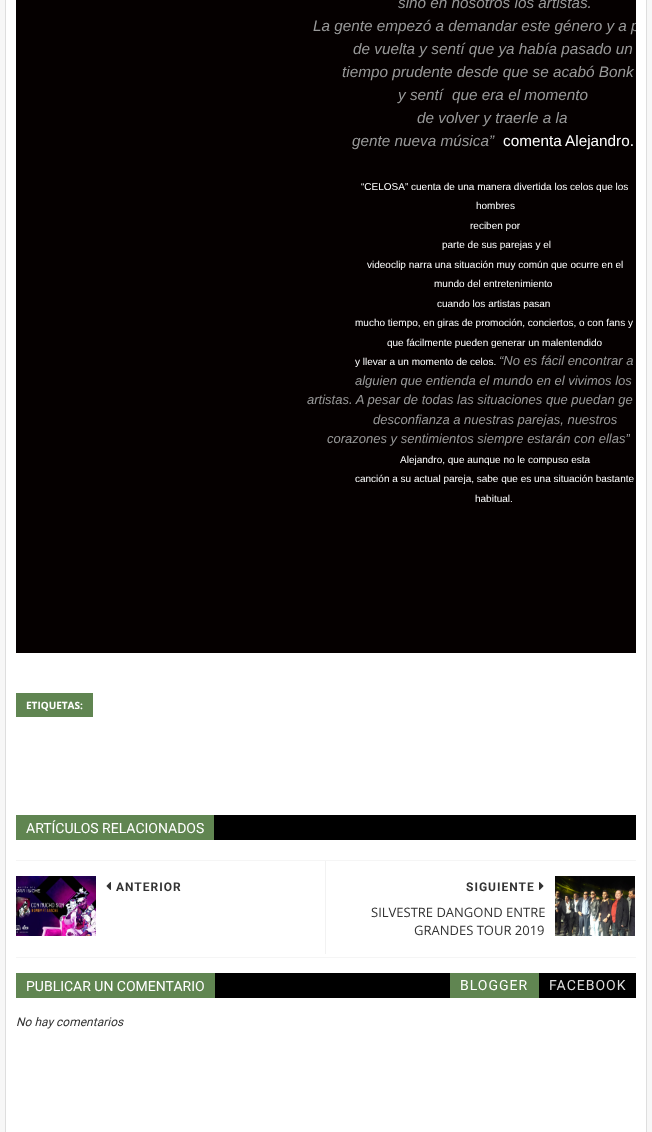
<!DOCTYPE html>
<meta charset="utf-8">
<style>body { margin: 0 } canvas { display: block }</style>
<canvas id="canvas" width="652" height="1132"></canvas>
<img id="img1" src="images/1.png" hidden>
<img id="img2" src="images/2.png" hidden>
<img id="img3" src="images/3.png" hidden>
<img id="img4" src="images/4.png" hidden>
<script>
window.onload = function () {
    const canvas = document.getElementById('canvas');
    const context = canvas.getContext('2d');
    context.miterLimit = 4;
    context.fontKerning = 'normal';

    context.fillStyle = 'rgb(247, 247, 247)';
    context.fillRect(0, 0, 652, 1132);
    context.fillStyle = 'rgb(255, 255, 255)';
    context.fillRect(6, 0, 640, 1132);
    context.fillStyle = 'rgb(222, 222, 222)';
    context.beginPath();
    context.moveTo(647, -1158);
    context.lineTo(647, 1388);
    context.lineTo(646, 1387);
    context.lineTo(646, -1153);
    context.closePath();
    context.fill();
    context.beginPath();
    context.moveTo(5, 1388);
    context.lineTo(5, -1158);
    context.lineTo(6, -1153);
    context.lineTo(6, 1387);
    context.closePath();
    context.fill();
    context.fillStyle = 'rgb(5, 0, 0)';
    context.fillRect(16, 0, 620, 653);
    context.fillStyle = 'rgb(96, 133, 81)';
    context.fillRect(16, 693, 77, 24);
    context.fillStyle = 'rgb(0, 0, 0)';
    context.fillRect(214, 815, 422, 25);
    context.fillStyle = 'rgb(96, 133, 81)';
    context.fillRect(16, 815, 198, 25);
    context.fillStyle = 'rgb(245, 245, 245)';
    context.fillRect(16, 860, 620, 1);
    context.fillRect(16, 957, 620, 1);
    context.drawImage(document.getElementById('img1'), 16, 876, 80, 60);
    context.drawImage(document.getElementById('img2'), 106, 882, 5, 8);
    context.fillStyle = 'rgb(242, 242, 242)';
    context.fillRect(325, 861, 1, 93);
    context.drawImage(document.getElementById('img3'), 539, 882, 5, 8);
    context.drawImage(document.getElementById('img4'), 555, 876, 80, 60);
    context.fillStyle = 'rgb(0, 0, 0)';
    context.fillRect(215, 973, 421, 25);
    context.fillStyle = 'rgb(96, 133, 81)';
    context.fillRect(16, 973, 199, 25);
    context.fillRect(450, 973, 89, 25);
    context.font = 'italic 15.3px Liberation Sans';
    context.fillStyle = 'rgb(153, 153, 153)';
    context.fillText('sino en nosotros los artistas.', 398, 8);
    context.save();
    context.beginPath();
    context.rect(16, 0, 620, 653);
    context.clip();
    context.fillText('La gente empezó a demandar este género y a p', 313, 31);
    context.restore();
    context.fillText('de vuelta y sentí que ya había pasado un', 353, 54);
    context.fillText('tiempo prudente desde que se acabó Bonk', 342, 77);
    context.fillText('y sentí', 398, 100);
    context.fillText('que era el momento', 452, 100);
    context.fillText('de volver y traerle a la', 417, 123);
    context.fillText('gente nueva música”', 352, 146);
    context.font = '15.3px Liberation Sans';
    context.fillStyle = 'rgb(255, 255, 255)';
    context.fillText('comenta Alejandro.', 503, 146);
    context.font = '10px Liberation Sans';
    context.fillText('“CELOSA” cuenta de una manera divertida los celos que los', 361, 190);
    context.fillText('hombres', 476, 209);
    context.fillText('reciben por', 470, 229);
    context.fillText('parte de sus parejas y el', 442, 248);
    context.fillText('videoclip narra una situación muy común que ocurre en el', 367, 268);
    context.fillText('mundo del entretenimiento', 434, 287);
    context.fillText('cuando los artistas pasan', 437, 307);
    context.fillText('mucho tiempo, en giras de promoción, conciertos, o con fans y', 355, 326);
    context.fillText('que fácilmente pueden generar un malentendido', 387, 346);
    context.fillText('y llevar a un momento de celos.', 355, 365);
    context.font = 'italic 13px Liberation Sans';
    context.fillStyle = 'rgb(153, 153, 153)';
    context.fillText('“No es fácil encontrar a', 499, 365);
    context.fillText('alguien que entienda el mundo en el vivimos los', 355, 385);
    context.fillText('artistas. A pesar de todas las situaciones que puedan ge', 307, 404);
    context.fillText('desconfianza a nuestras parejas, nuestros', 373, 424);
    context.fillText('corazones y sentimientos siempre estarán con ellas”', 327, 443);
    context.fillStyle = 'rgb(6, 0, 0)';
    context.fillRect(630, 434, 1, 2);
    context.font = '10px Liberation Sans';
    context.fillStyle = 'rgb(255, 255, 255)';
    context.fillText('Alejandro, que aunque no le compuso esta', 400, 463);
    context.fillText('canción a su actual pareja, sabe que es una situación bastante', 355, 482);
    context.fillText('habitual.', 475, 502);
    context.font = 'bold 10px Open Sans';
    context.fillText('ETIQUETAS:', 26, 709);
    context.font = '14px Roboto';
    context.fillText('ARTÍCULOS RELACIONADOS', 26, 833);
    context.letterSpacing = '1px';
    context.font = 'bold 12px Roboto';
    context.fillStyle = 'rgb(51, 51, 51)';
    context.fillText('ANTERIOR', 116, 891);
    context.fillText('SIGUIENTE', 466, 891);
    context.letterSpacing = '0px';
    context.font = '13px Open Sans';
    context.fillText('SILVESTRE DANGOND ENTRE', 371, 917);
    context.fillText('GRANDES TOUR 2019', 414, 935);
    context.font = '14px Roboto';
    context.fillStyle = 'rgb(255, 255, 255)';
    context.fillText('PUBLICAR UN COMENTARIO', 26, 991);
    context.letterSpacing = '1px';
    context.fillText('BLOGGER', 460, 990);
    context.fillStyle = 'rgb(221, 221, 221)';
    context.fillText('FACEBOOK', 549, 990);
    context.letterSpacing = '0px';
    context.font = 'italic 12px Roboto';
    context.fillStyle = 'rgb(51, 51, 51)';
    context.fillText('No hay comentarios', 16, 1026);
};
</script>
